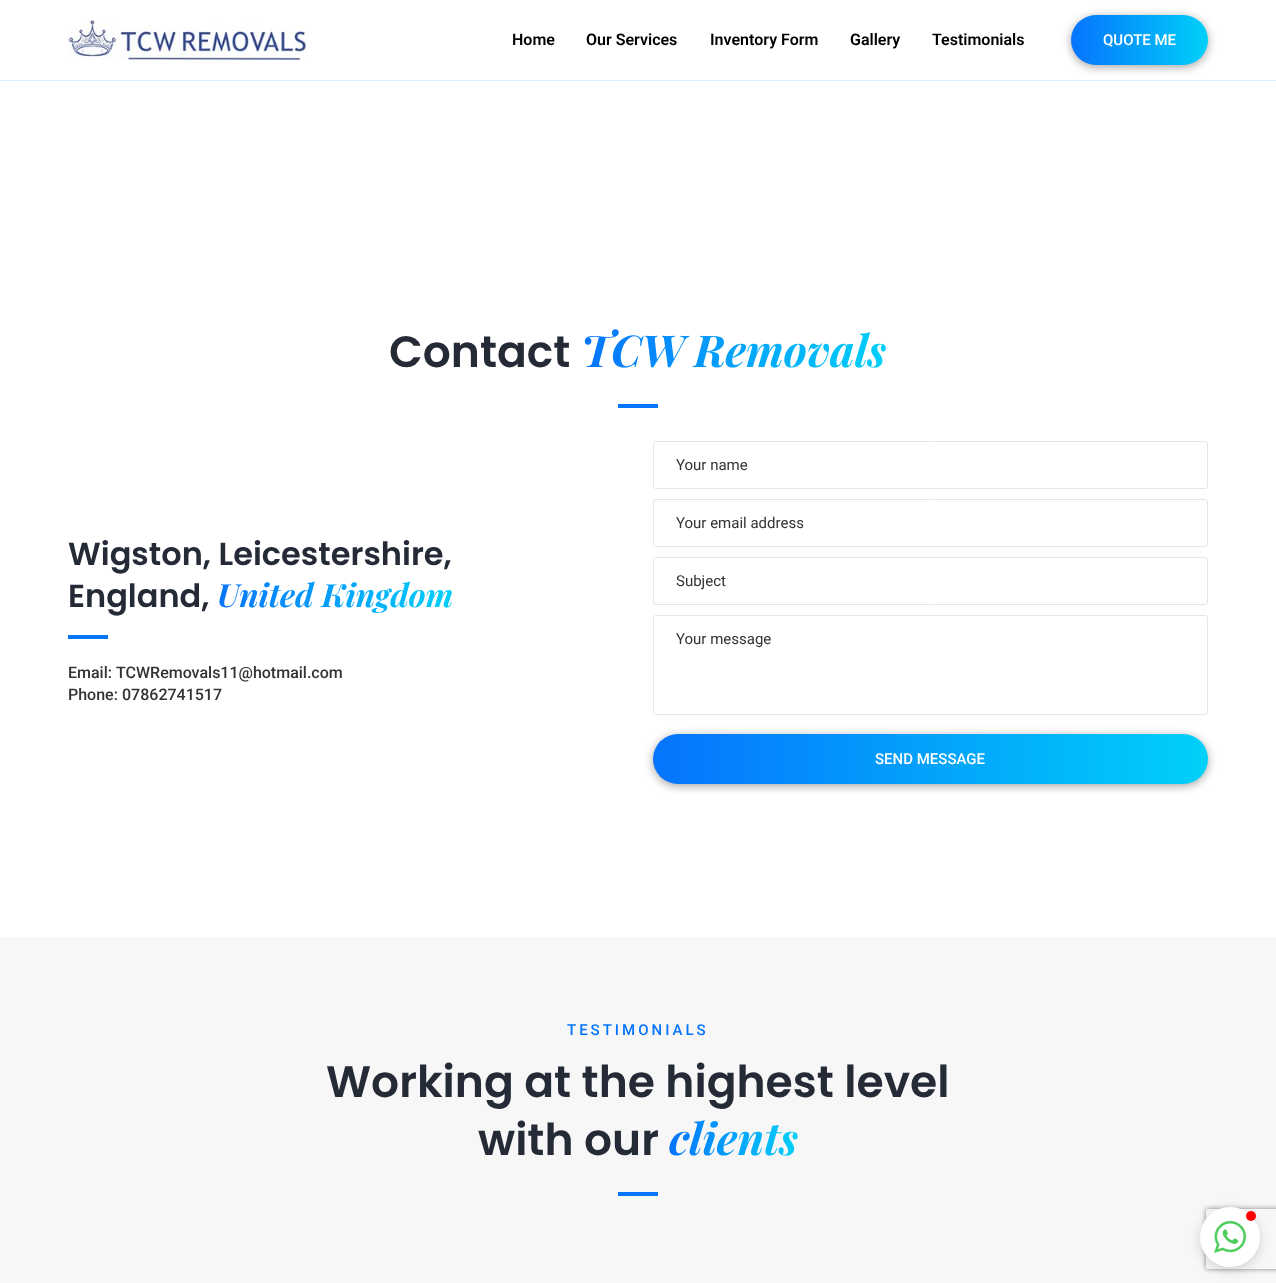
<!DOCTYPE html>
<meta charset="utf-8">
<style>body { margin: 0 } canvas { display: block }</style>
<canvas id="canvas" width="1276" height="1283"></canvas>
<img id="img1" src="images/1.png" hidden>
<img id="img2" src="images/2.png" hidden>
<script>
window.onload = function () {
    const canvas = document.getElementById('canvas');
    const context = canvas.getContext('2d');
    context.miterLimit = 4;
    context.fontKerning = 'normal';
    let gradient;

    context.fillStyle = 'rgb(255, 255, 255)';
    context.fillRect(0, 0, 1276, 1283);
    context.fillStyle = 'rgb(209, 242, 255)';
    context.fillRect(0, 80, 1276, 1);
    context.drawImage(document.getElementById('img1'), 68, 20, 239, 40);
    context.fillStyle = 'rgba(0, 0, 0, 0.36)';
    context.filter = 'blur(5px)';
    context.beginPath();
    context.roundRect(1071, 17, 137, 50, 25);
    context.fill();
    context.filter = 'none';
    gradient = context.createLinearGradient(1071, 40, 1208, 40);
    gradient.addColorStop(0, 'rgb(6, 116, 253)');
    gradient.addColorStop(1, 'rgb(0, 208, 249)');
    context.fillStyle = gradient;
    context.beginPath();
    context.roundRect(1071, 15, 137, 50, 25);
    context.fill();
    context.fillStyle = 'rgb(6, 116, 253)';
    context.fillRect(618, 404, 40, 4);
    context.fillRect(68, 635, 40, 4);
    context.beginPath();
    context.roundRect(653.5, 441.5, 554, 47, 2.5);
    context.strokeStyle = 'rgb(229, 229, 229)';
    context.stroke();
    context.beginPath();
    context.roundRect(653.5, 499.5, 554, 47, 2.5);
    context.stroke();
    context.beginPath();
    context.roundRect(653.5, 557.5, 554, 47, 2.5);
    context.stroke();
    context.beginPath();
    context.roundRect(653.5, 615.5, 554, 99, 2.5);
    context.stroke();
    context.fillStyle = 'rgba(0, 0, 0, 0.36)';
    context.filter = 'blur(5px)';
    context.beginPath();
    context.roundRect(653, 736, 555, 50, 25);
    context.fill();
    context.filter = 'none';
    gradient = context.createLinearGradient(653, 759, 1208, 759);
    gradient.addColorStop(0, 'rgb(6, 116, 253)');
    gradient.addColorStop(1, 'rgb(0, 208, 249)');
    context.fillStyle = gradient;
    context.beginPath();
    context.roundRect(653, 734, 555, 50, 25);
    context.fill();
    context.fillStyle = 'rgb(247, 247, 247)';
    context.fillRect(0, 937, 1276, 346);
    context.fillStyle = 'rgb(6, 116, 253)';
    context.fillRect(618, 1192, 40, 4);
    context.fillStyle = 'rgba(0, 0, 0, 0.15)';
    context.filter = 'blur(6px)';
    context.beginPath();
    context.roundRect(1200, 1210, 60, 60, 30);
    context.fill();
    context.filter = 'none';
    context.save();
    context.beginPath();
    context.moveTo(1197, 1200);
    context.lineTo(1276, 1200);
    context.lineTo(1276, 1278);
    context.lineTo(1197, 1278);
    context.closePath();
    context.moveTo(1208, 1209);
    context.lineTo(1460, 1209);
    context.bezierCurveTo(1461, 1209, 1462, 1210, 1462, 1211);
    context.lineTo(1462, 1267);
    context.bezierCurveTo(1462, 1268, 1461, 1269, 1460, 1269);
    context.lineTo(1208, 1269);
    context.bezierCurveTo(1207, 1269, 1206, 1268, 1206, 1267);
    context.lineTo(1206, 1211);
    context.bezierCurveTo(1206, 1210, 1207, 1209, 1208, 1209);
    context.closePath();
    context.clip('evenodd');
    context.fillStyle = 'rgb(128, 128, 128)';
    context.filter = 'blur(2.5px)';
    context.beginPath();
    context.roundRect(1206, 1209, 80, 60, 2);
    context.fill();
    context.filter = 'none';
    context.restore();
    context.fillStyle = 'rgb(255, 255, 255)';
    context.beginPath();
    context.arc(1230, 1237, 30, 0, 2 * Math.PI);
    context.fill();
    context.fillStyle = 'rgb(255, 0, 0)';
    context.beginPath();
    context.arc(1251, 1216, 5, 0, 2 * Math.PI);
    context.fill();
    context.drawImage(document.getElementById('img2'), 1214, 1221, 32, 32);
    context.font = '600 16px Roboto';
    context.fillStyle = 'rgb(0, 0, 0)';
    context.fillText('Home', 512, 45);
    context.fillText('Our Services', 586, 45);
    context.fillText('Inventory Form', 710, 45);
    context.fillText('Gallery', 850, 45);
    context.fillText('Testimonials', 932, 45);
    context.font = '500 15px Roboto';
    context.fillStyle = 'rgb(255, 255, 255)';
    context.fillText('QUOTE ME', 1103, 45);
    context.font = '600 44px Poppins';
    context.fillStyle = 'rgb(37, 42, 55)';
    context.fillText('Contact', 389, 367);
    context.font = 'italic bold 44px Playfair Display';
    gradient = context.createLinearGradient(581, 349, 887, 349);
    gradient.addColorStop(0, 'rgb(6, 116, 253)');
    gradient.addColorStop(1, 'rgb(0, 208, 249)');
    context.fillStyle = gradient;
    context.fillText('TCW Removals', 581, 367);
    context.font = '600 32px Poppins';
    context.fillStyle = 'rgb(37, 42, 55)';
    context.fillText('Wigston, Leicestershire,', 68, 565);
    context.fillText('England,', 68, 607);
    context.font = 'italic bold 32px Playfair Display';
    gradient = context.createLinearGradient(217, 594, 453, 594);
    gradient.addColorStop(0, 'rgb(6, 116, 253)');
    gradient.addColorStop(1, 'rgb(0, 208, 249)');
    context.fillStyle = gradient;
    context.fillText('United Kingdom', 217, 607);
    context.font = '500 16px Roboto';
    context.fillStyle = 'rgb(51, 51, 51)';
    context.fillText('Email:', 68, 678);
    context.fillText('TCWRemovals11@hotmail.com', 116, 678);
    context.fillText('Phone:', 68, 700);
    context.fillText('07862741517', 122, 700);
    context.font = '15px Roboto';
    context.fillText('Your name', 676, 470);
    context.fillText('Your email address', 676, 528);
    context.fillText('Subject', 676, 586);
    context.fillText('Your message', 676, 644);
    context.font = '500 15px Roboto';
    context.fillStyle = 'rgb(255, 255, 255)';
    context.fillText('SEND MESSAGE', 875, 764);
    context.letterSpacing = '3px';
    context.fillStyle = 'rgb(6, 116, 253)';
    context.fillText('TESTIMONIALS', 567, 1035);
    context.letterSpacing = '0px';
    context.font = '600 44px Poppins';
    context.fillStyle = 'rgb(37, 42, 55)';
    context.fillText('Working at the highest level', 326, 1097);
    context.fillText('with our', 478, 1155);
    context.font = 'italic bold 44px Playfair Display';
    gradient = context.createLinearGradient(669, 1137, 798, 1137);
    gradient.addColorStop(0, 'rgb(6, 116, 253)');
    gradient.addColorStop(1, 'rgb(0, 208, 249)');
    context.fillStyle = gradient;
    context.fillText('clients', 669, 1155);
};
</script>
